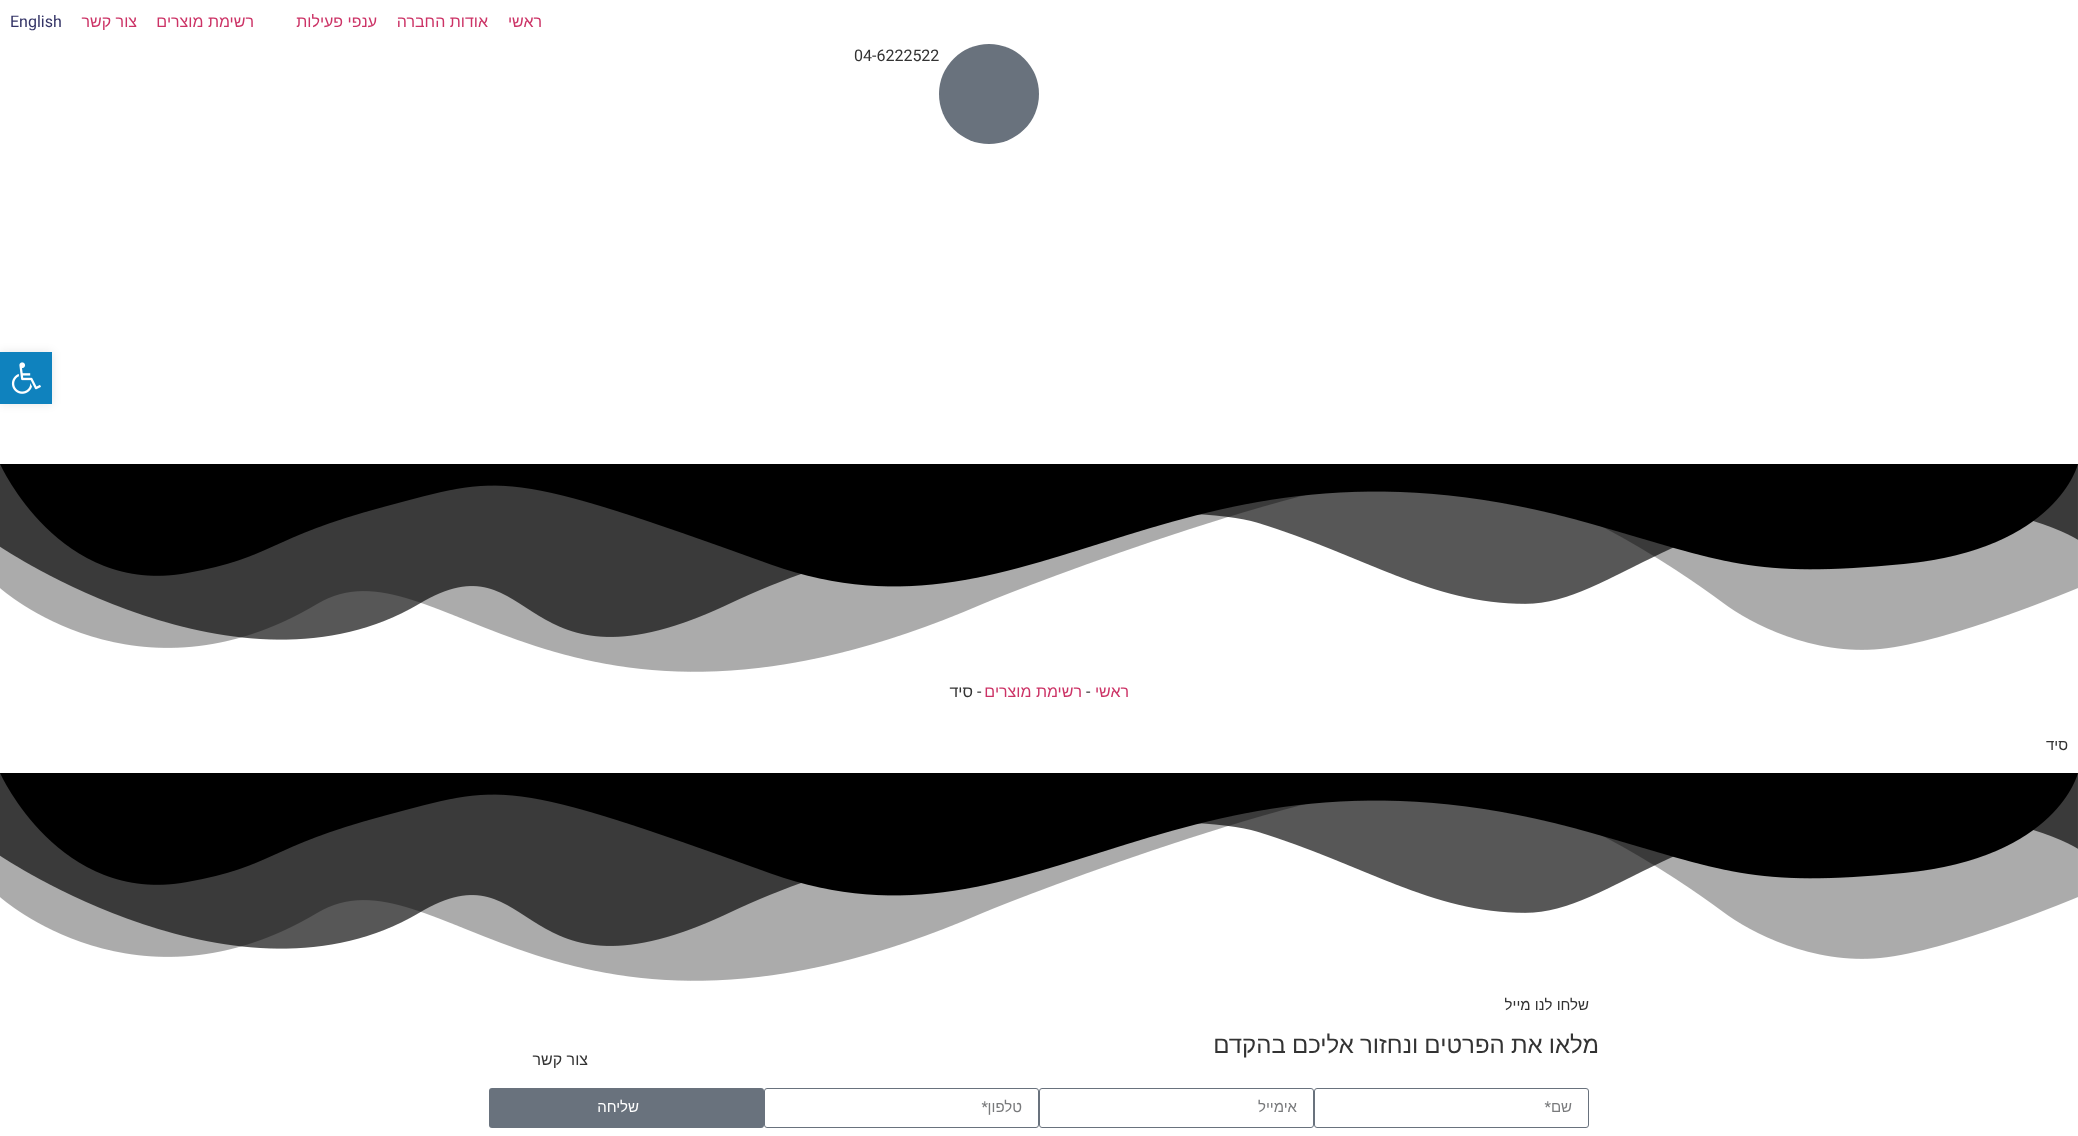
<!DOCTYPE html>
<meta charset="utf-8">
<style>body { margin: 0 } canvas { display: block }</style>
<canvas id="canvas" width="2078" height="1136"></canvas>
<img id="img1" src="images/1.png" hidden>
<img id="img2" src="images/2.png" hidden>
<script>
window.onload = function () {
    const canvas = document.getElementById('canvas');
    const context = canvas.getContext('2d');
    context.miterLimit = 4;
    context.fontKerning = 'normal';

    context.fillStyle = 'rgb(255, 255, 255)';
    context.fillRect(0, 0, 2078, 1136);
    context.fillStyle = 'rgb(105, 114, 125)';
    context.beginPath();
    context.arc(989, 94, 50, 0, 2 * Math.PI);
    context.fill();
    context.fillStyle = 'rgba(0, 0, 0, 0.1)';
    context.filter = 'blur(5px)';
    context.beginPath();
    context.rect(0, 352, 52, 52);
    context.fill();
    context.filter = 'none';
    context.fillStyle = 'rgb(15, 130, 190)';
    context.fillRect(0, 352, 52, 52);
    context.drawImage(document.getElementById('img1'), 11, 362, 30, 32);
    context.drawImage(document.getElementById('img2'), 0, 464, 2078, 208);
    context.drawImage(document.getElementById('img2'), 0, 773, 2078, 208);
    context.beginPath();
    context.roundRect(1314.5, 1088.5, 274, 39, 2.5);
    context.strokeStyle = 'rgb(105, 114, 125)';
    context.stroke();
    context.beginPath();
    context.roundRect(1039.5, 1088.5, 274, 39, 2.5);
    context.stroke();
    context.beginPath();
    context.roundRect(764.5, 1088.5, 274, 39, 2.5);
    context.stroke();
    context.fillStyle = 'rgb(105, 114, 125)';
    context.beginPath();
    context.roundRect(489, 1088, 275, 40, 3);
    context.fill();
    context.direction = 'rtl';
    context.font = '16px Liberation Sans';
    context.fillStyle = 'rgb(204, 51, 102)';
    context.fillText('ראשי', 542, 27);
    context.fillText('אודות החברה', 488, 27);
    context.fillText('ענפי פעילות', 377, 27);
    context.fillText('רשימת מוצרים', 254, 27);
    context.fillText('צור קשר', 137, 27);
    context.direction = 'ltr';
    context.font = '16px Roboto';
    context.fillStyle = 'rgb(51, 51, 102)';
    context.fillText('English', 10, 27);
    context.fillStyle = 'rgb(51, 51, 51)';
    context.fillText('04-6222522', 854, 61);
    context.direction = 'rtl';
    context.font = '16px Liberation Sans';
    context.fillStyle = 'rgb(204, 51, 102)';
    context.fillText('ראשי', 1129, 697);
    context.direction = 'ltr';
    context.font = '16px Roboto';
    context.fillStyle = 'rgb(51, 51, 51)';
    context.fillText('-', 1086, 697);
    context.direction = 'rtl';
    context.font = '16px Liberation Sans';
    context.fillStyle = 'rgb(204, 51, 102)';
    context.fillText('רשימת מוצרים', 1082, 697);
    context.direction = 'ltr';
    context.font = '16px Roboto';
    context.fillStyle = 'rgb(51, 51, 51)';
    context.fillText('-', 977, 697);
    context.direction = 'rtl';
    context.font = '16px Liberation Sans';
    context.fillText('סיד', 973, 697);
    context.font = '15px Liberation Sans';
    context.fillText('סיד', 2068, 750);
    context.fillText('שלחו לנו מייל', 1589, 1010);
    context.wordSpacing = '-0.5px';
    context.font = '24px Liberation Sans';
    context.fillText('מלאו את הפרטים ונחזור אליכם בהקדם', 1599, 1053);
    context.wordSpacing = '0px';
    context.font = '16px Liberation Sans';
    context.fillText('צור קשר', 588, 1065);
    context.font = '15px Liberation Sans';
    context.fillStyle = 'rgb(121, 122, 124)';
    context.fillText('שם', 1572, 1112);
    context.font = '15px Roboto';
    context.fillText('*', 1551, 1112);
    context.font = '15px Liberation Sans';
    context.fillText('אימייל', 1297, 1112);
    context.fillText('טלפון', 1022, 1112);
    context.font = '15px Roboto';
    context.fillText('*', 988, 1112);
    context.font = '15px Liberation Sans';
    context.fillStyle = 'rgb(255, 255, 255)';
    context.fillText('שליחה', 639, 1112);
};
</script>
